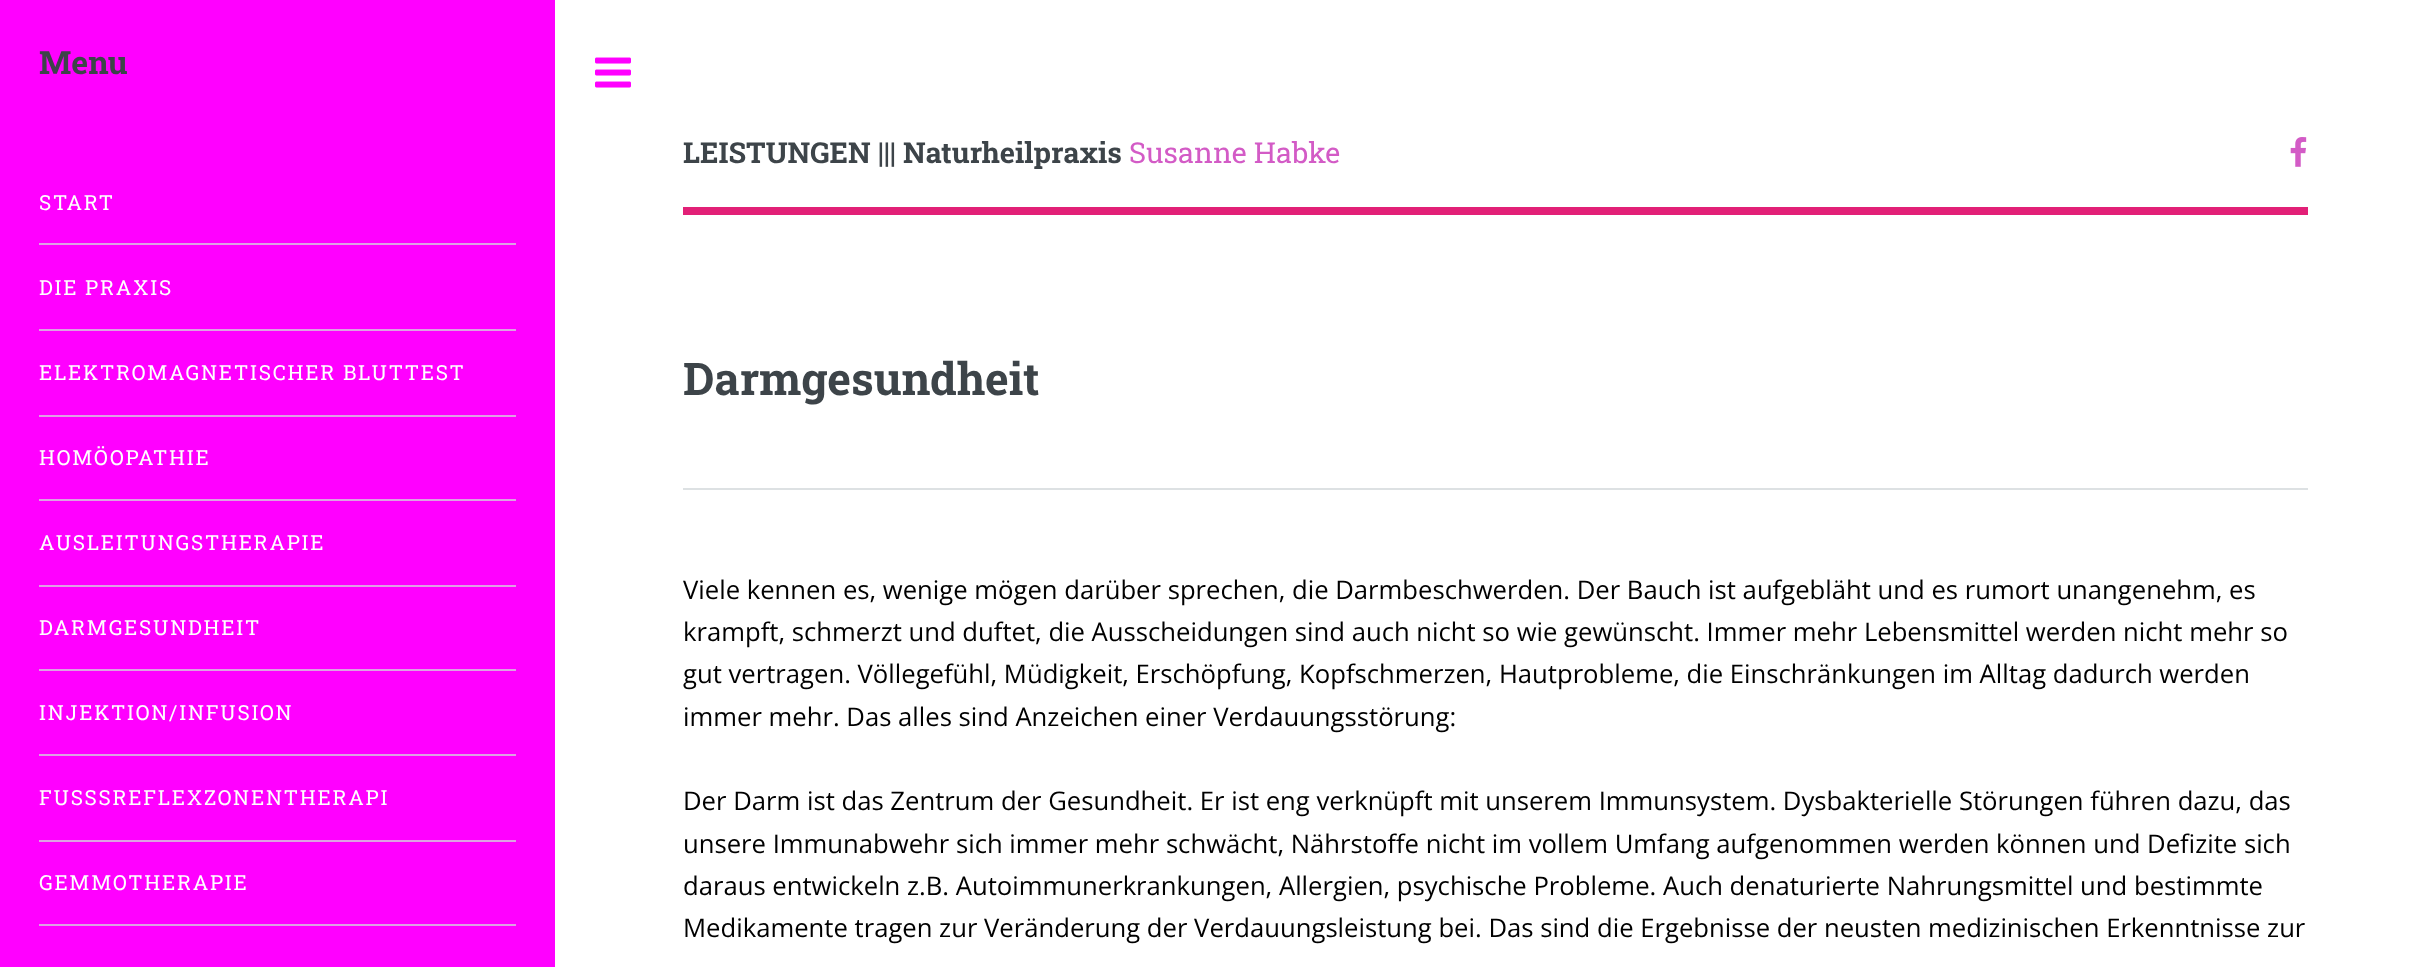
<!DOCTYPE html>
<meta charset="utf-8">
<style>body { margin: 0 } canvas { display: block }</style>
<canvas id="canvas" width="2436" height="967"></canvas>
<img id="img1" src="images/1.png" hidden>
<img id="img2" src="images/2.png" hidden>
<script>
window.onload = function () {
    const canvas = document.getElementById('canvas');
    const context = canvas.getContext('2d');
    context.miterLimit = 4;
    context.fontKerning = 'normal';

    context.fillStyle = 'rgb(255, 255, 255)';
    context.fillRect(0, 0, 2436, 967);
    context.fillStyle = 'rgb(255, 0, 255)';
    context.fillRect(0, 0, 555, 967);
    context.fillStyle = 'rgb(221, 161, 227)';
    context.fillRect(39, 243, 477, 2);
    context.fillRect(39, 329, 477, 2);
    context.fillRect(39, 415, 477, 2);
    context.fillRect(39, 499, 477, 2);
    context.fillRect(39, 585, 477, 2);
    context.fillRect(39, 669, 477, 2);
    context.fillRect(39, 754, 477, 2);
    context.fillRect(39, 840, 477, 2);
    context.fillRect(39, 924, 477, 2);
    context.drawImage(document.getElementById('img1'), 595, 57, 36, 31);
    context.fillStyle = 'rgb(226, 32, 119)';
    context.fillRect(683, 207, 1625, 8);
    context.drawImage(document.getElementById('img2'), 2290, 137, 17, 30);
    context.fillStyle = 'rgb(221, 225, 227)';
    context.fillRect(683, 488, 1625, 2);
    context.font = 'bold 32px Roboto Slab';
    context.fillStyle = 'rgb(61, 68, 73)';
    context.fillText('Menu', 39, 74);
    context.letterSpacing = '1.75px';
    context.font = '20.75px Roboto Slab';
    context.fillStyle = 'rgb(255, 255, 255)';
    context.fillText('START', 39, 210);
    context.fillText('DIE PRAXIS', 39, 295);
    context.fillText('ELEKTROMAGNETISCHER BLUTTEST', 39, 380);
    context.fillText('HOMÖOPATHIE', 39, 465);
    context.fillText('AUSLEITUNGSTHERAPIE', 39, 550);
    context.fillText('DARMGESUNDHEIT', 39, 635);
    context.fillText('INJEKTION/INFUSION', 39, 720);
    context.fillText('FUSSSREFLEXZONENTHERAPI', 39, 805);
    context.fillText('GEMMOTHERAPIE', 39, 890);
    context.letterSpacing = '0px';
    context.font = 'bold 28.9px Roboto Slab';
    context.fillStyle = 'rgb(61, 68, 73)';
    context.fillText('LEISTUNGEN ||| Naturheilpraxis', 683, 163);
    context.font = '28.9px Roboto Slab';
    context.fillStyle = 'rgb(211, 91, 198)';
    context.fillText('Susanne Habke', 1129, 163);
    context.font = 'bold 45px Roboto Slab';
    context.fillStyle = 'rgb(61, 68, 73)';
    context.fillText('Darmgesundheit', 683, 395);
    context.font = '25.67px Open Sans';
    context.fillStyle = 'rgb(0, 0, 0)';
    context.fillText('Viele kennen es, wenige mögen darüber sprechen, die Darmbeschwerden. Der Bauch ist aufgebläht und es rumort unangenehm, es', 683, 599);
    context.fillText('krampft, schmerzt und duftet, die Ausscheidungen sind auch nicht so wie gewünscht. Immer mehr Lebensmittel werden nicht mehr so', 683, 641);
    context.fillText('gut vertragen. Völlegefühl, Müdigkeit, Erschöpfung, Kopfschmerzen, Hautprobleme, die Einschränkungen im Alltag dadurch werden', 683, 683);
    context.fillText('immer mehr. Das alles sind Anzeichen einer Verdauungsstörung:', 683, 726);
    context.fillText('Der Darm ist das Zentrum der Gesundheit. Er ist eng verknüpft mit unserem Immunsystem. Dysbakterielle Störungen führen dazu, das', 683, 810);
    context.fillText('unsere Immunabwehr sich immer mehr schwächt, Nährstoffe nicht im vollem Umfang aufgenommen werden können und Defizite sich', 683, 853);
    context.fillText('daraus entwickeln z.B. Autoimmunerkrankungen, Allergien, psychische Probleme. Auch denaturierte Nahrungsmittel und bestimmte', 683, 895);
    context.fillText('Medikamente tragen zur Veränderung der Verdauungsleistung bei. Das sind die Ergebnisse der neusten medizinischen Erkenntnisse zur', 683, 937);
};
</script>
